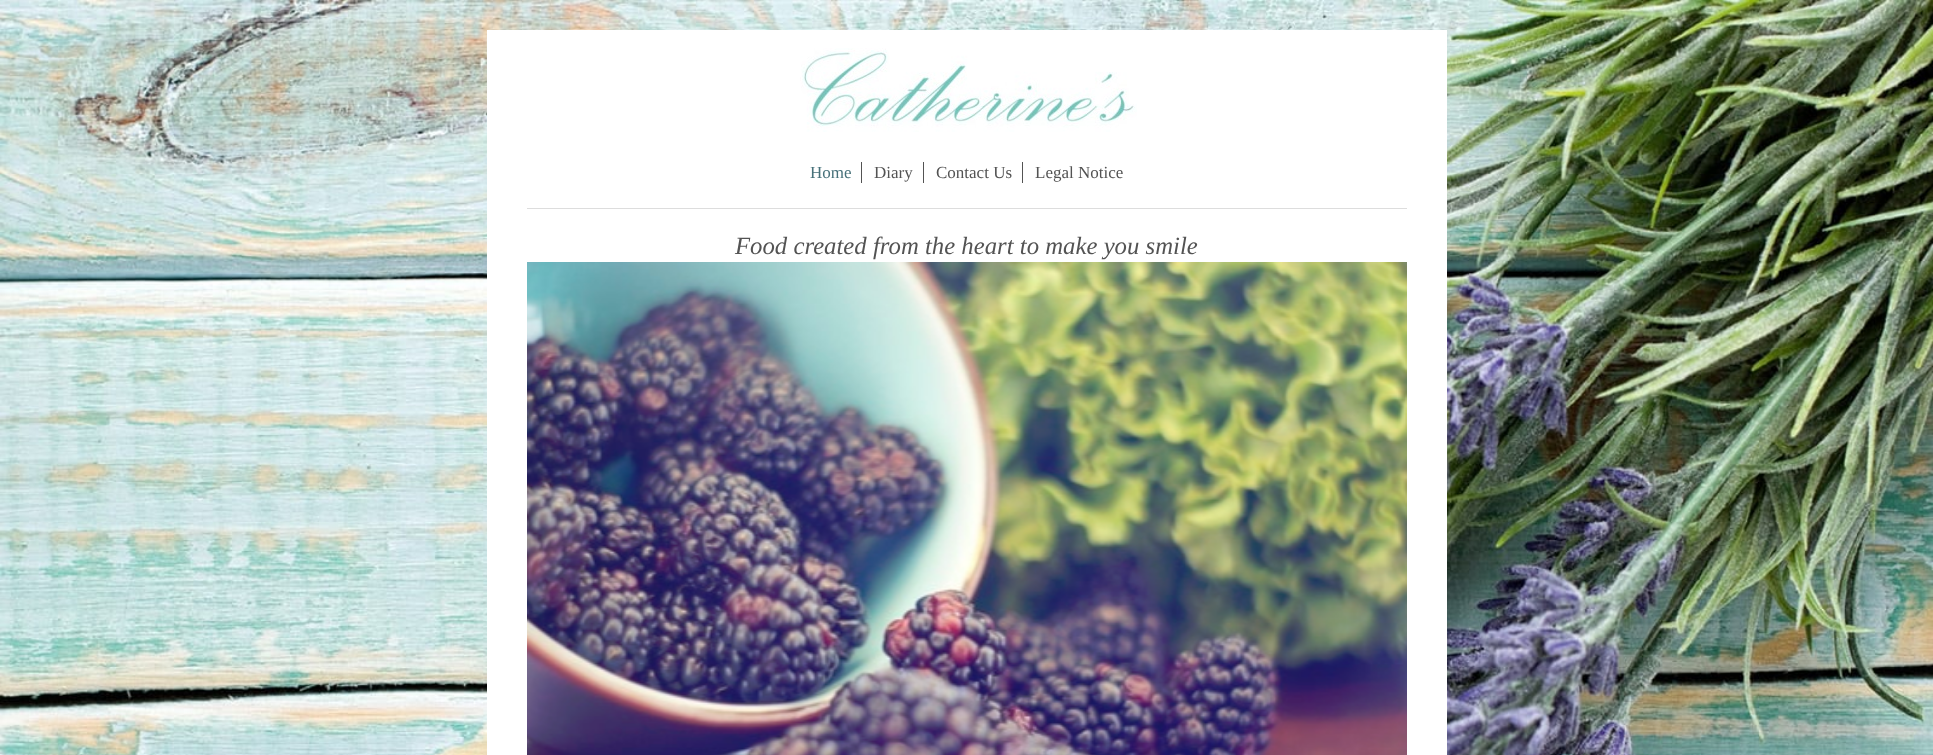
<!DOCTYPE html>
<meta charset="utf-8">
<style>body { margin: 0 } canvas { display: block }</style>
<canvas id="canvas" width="1933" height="755"></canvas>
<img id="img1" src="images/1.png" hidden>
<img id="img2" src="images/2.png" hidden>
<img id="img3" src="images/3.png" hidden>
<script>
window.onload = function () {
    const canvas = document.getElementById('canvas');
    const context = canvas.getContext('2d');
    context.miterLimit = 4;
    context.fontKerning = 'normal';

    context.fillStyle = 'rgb(255, 255, 255)';
    context.fillRect(0, 0, 1933, 755);
    context.drawImage(document.getElementById('img1'), 0, 0, 1933, 755);
    context.fillRect(487, 30, 960, 725);
    context.drawImage(document.getElementById('img2'), 800, 48, 337, 84);
    context.fillStyle = 'rgb(221, 221, 221)';
    context.fillRect(527, 208, 880, 1);
    context.fillStyle = 'rgb(83, 83, 83)';
    context.fillRect(861, 162, 1, 21);
    context.fillRect(923, 162, 1, 21);
    context.fillRect(1022, 162, 1, 21);
    context.drawImage(document.getElementById('img3'), 527, 262, 880, 493);
    context.font = '17px Liberation Serif';
    context.fillStyle = 'rgb(71, 113, 122)';
    context.fillText('Home', 810, 178);
    context.fillStyle = 'rgb(83, 83, 83)';
    context.fillText('Diary', 874, 178);
    context.fillText('Contact Us', 936, 178);
    context.fillText('Legal Notice', 1035, 178);
    context.font = 'italic 24.75px Liberation Serif';
    context.fillText('Food created from the heart to make you smile', 735, 254);
};
</script>
